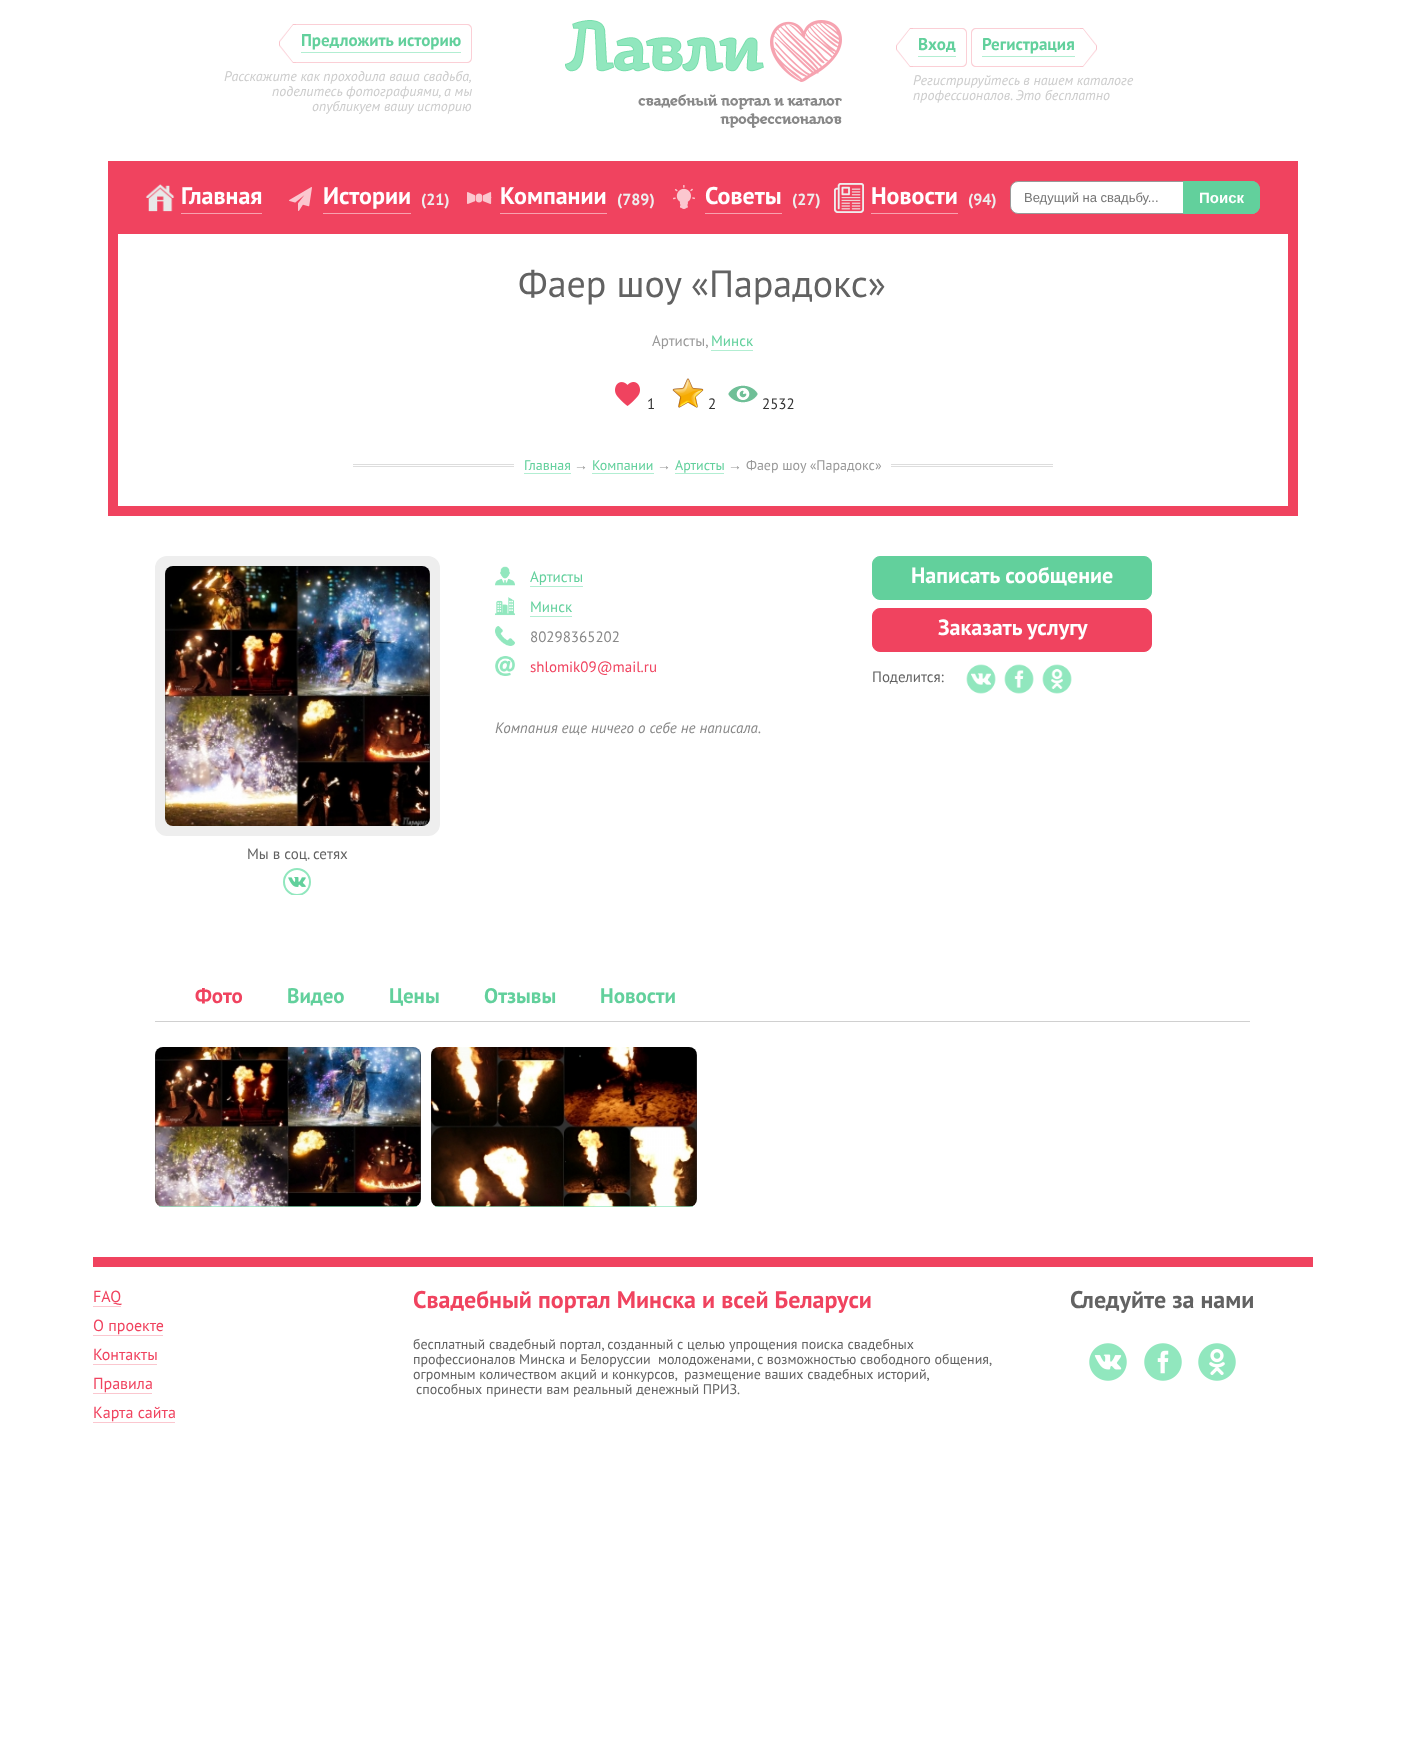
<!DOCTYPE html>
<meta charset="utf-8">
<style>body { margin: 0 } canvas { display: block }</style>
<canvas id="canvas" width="1405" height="1761"></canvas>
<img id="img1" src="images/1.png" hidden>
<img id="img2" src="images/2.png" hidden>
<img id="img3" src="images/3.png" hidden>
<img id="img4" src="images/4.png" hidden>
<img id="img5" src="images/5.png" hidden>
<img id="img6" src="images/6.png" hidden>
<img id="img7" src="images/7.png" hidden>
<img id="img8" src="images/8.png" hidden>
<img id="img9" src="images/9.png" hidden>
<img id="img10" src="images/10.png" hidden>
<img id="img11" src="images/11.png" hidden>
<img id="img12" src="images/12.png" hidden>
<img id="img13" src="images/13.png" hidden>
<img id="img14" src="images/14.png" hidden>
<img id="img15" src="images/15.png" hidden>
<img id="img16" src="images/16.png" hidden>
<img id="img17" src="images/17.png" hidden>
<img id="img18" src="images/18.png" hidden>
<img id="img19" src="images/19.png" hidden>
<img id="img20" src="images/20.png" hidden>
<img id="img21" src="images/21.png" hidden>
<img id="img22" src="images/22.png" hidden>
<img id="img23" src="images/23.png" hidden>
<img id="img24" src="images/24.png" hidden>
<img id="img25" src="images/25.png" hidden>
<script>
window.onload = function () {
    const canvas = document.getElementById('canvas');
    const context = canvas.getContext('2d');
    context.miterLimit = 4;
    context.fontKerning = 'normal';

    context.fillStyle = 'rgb(255, 255, 255)';
    context.fillRect(0, 0, 1405, 1761);
    context.fillStyle = 'rgb(251, 207, 214)';
    context.beginPath();
    context.moveTo(296, 24);
    context.lineTo(467, 24);
    context.bezierCurveTo(470, 24, 472, 26, 472, 29);
    context.lineTo(472, 58);
    context.bezierCurveTo(472, 61, 470, 63, 467, 63);
    context.lineTo(296, 63);
    context.closePath();
    context.moveTo(296, 25);
    context.lineTo(467, 25);
    context.bezierCurveTo(469, 25, 471, 27, 471, 29);
    context.lineTo(471, 58);
    context.bezierCurveTo(471, 60, 469, 62, 467, 62);
    context.lineTo(296, 62);
    context.closePath();
    context.fill('evenodd');
    context.drawImage(document.getElementById('img1'), 279, 24, 17, 39);
    context.fillStyle = 'rgb(178, 238, 210)';
    context.fillRect(301, 52, 160, 1);
    context.drawImage(document.getElementById('img2'), 565, 20, 277, 108);
    context.fillStyle = 'rgb(251, 207, 214)';
    context.beginPath();
    context.moveTo(913, 28);
    context.lineTo(962, 28);
    context.bezierCurveTo(965, 28, 967, 30, 967, 33);
    context.lineTo(967, 62);
    context.bezierCurveTo(967, 65, 965, 67, 962, 67);
    context.lineTo(913, 67);
    context.closePath();
    context.moveTo(913, 29);
    context.lineTo(962, 29);
    context.bezierCurveTo(964, 29, 966, 31, 966, 33);
    context.lineTo(966, 62);
    context.bezierCurveTo(966, 64, 964, 66, 962, 66);
    context.lineTo(913, 66);
    context.closePath();
    context.fill('evenodd');
    context.drawImage(document.getElementById('img1'), 896, 28, 17, 39);
    context.fillStyle = 'rgb(178, 238, 210)';
    context.fillRect(918, 56, 38, 1);
    context.fillStyle = 'rgb(251, 207, 214)';
    context.beginPath();
    context.moveTo(976, 28);
    context.lineTo(1080, 28);
    context.lineTo(1080, 67);
    context.lineTo(976, 67);
    context.bezierCurveTo(973, 67, 971, 65, 971, 62);
    context.lineTo(971, 33);
    context.bezierCurveTo(971, 30, 973, 28, 976, 28);
    context.closePath();
    context.moveTo(976, 29);
    context.lineTo(1080, 29);
    context.lineTo(1080, 66);
    context.lineTo(976, 66);
    context.bezierCurveTo(974, 66, 972, 64, 972, 62);
    context.lineTo(972, 33);
    context.bezierCurveTo(972, 31, 974, 29, 976, 29);
    context.closePath();
    context.fill('evenodd');
    context.fillStyle = 'rgb(178, 238, 210)';
    context.fillRect(982, 56, 93, 1);
    context.drawImage(document.getElementById('img3'), 1080, 28, 17, 39);
    context.fillStyle = 'rgb(240, 67, 95)';
    context.fillRect(108, 161, 1190, 73);
    context.drawImage(document.getElementById('img4'), 145, 184, 30, 28);
    context.fillStyle = 'rgb(248, 161, 175)';
    context.fillRect(181, 213, 81, 1);
    context.drawImage(document.getElementById('img5'), 289, 187, 23, 24);
    context.fillRect(323, 213, 88, 1);
    context.drawImage(document.getElementById('img6'), 467, 192, 25, 12);
    context.fillRect(500, 213, 107, 1);
    context.drawImage(document.getElementById('img7'), 673, 185, 22, 24);
    context.fillRect(705, 213, 77, 1);
    context.drawImage(document.getElementById('img8'), 834, 183, 30, 30);
    context.fillRect(871, 213, 87, 1);
    context.fillStyle = 'rgb(255, 255, 255)';
    context.beginPath();
    context.roundRect(1010.5, 181.5, 249, 32, 7.5);
    context.fill();
    context.strokeStyle = 'rgb(153, 153, 153)';
    context.stroke();
    context.fillStyle = 'rgb(98, 208, 156)';
    context.beginPath();
    context.roundRect(1183.5, 181.5, 76, 32, [0, 7.5, 7.5, 0]);
    context.fill();
    context.strokeStyle = 'rgb(98, 208, 156)';
    context.stroke();
    context.fillStyle = 'rgb(240, 67, 95)';
    context.fillRect(1288, 234, 10, 272);
    context.fillRect(118, 506, 1180, 10);
    context.fillRect(108, 234, 10, 282);
    context.fillStyle = 'rgb(178, 238, 210)';
    context.fillRect(711, 350, 42, 1);
    context.drawImage(document.getElementById('img9'), 615, 382, 25, 24);
    context.drawImage(document.getElementById('img10'), 672, 378, 32, 30);
    context.drawImage(document.getElementById('img11'), 728, 385, 30, 18);
    context.fillStyle = 'rgb(221, 221, 221)';
    context.fillRect(353, 464, 700, 1);
    context.fillRect(353, 466, 700, 1);
    context.fillStyle = 'rgb(255, 255, 255)';
    context.fillRect(514, 464, 377, 3);
    context.fillStyle = 'rgb(178, 238, 210)';
    context.fillRect(524, 473, 47, 1);
    context.fillRect(592, 473, 62, 1);
    context.fillRect(675, 473, 49, 1);
    context.fillStyle = 'rgb(240, 67, 95)';
    context.fillRect(93, 1257, 1220, 10);
    context.drawImage(document.getElementById('img12'), 495, 566, 20, 20);
    context.fillStyle = 'rgb(178, 238, 210)';
    context.fillRect(530, 586, 53, 1);
    context.drawImage(document.getElementById('img13'), 495, 597, 20, 19);
    context.fillRect(530, 616, 42, 1);
    context.drawImage(document.getElementById('img14'), 495, 626, 20, 20);
    context.drawImage(document.getElementById('img15'), 495, 656, 20, 20);
    context.fillStyle = 'rgb(98, 208, 156)';
    context.beginPath();
    context.roundRect(872.5, 556.5, 279, 43, 7.5);
    context.fill();
    context.stroke();
    context.fillStyle = 'rgb(240, 67, 95)';
    context.beginPath();
    context.roundRect(872.5, 608.5, 279, 43, 7.5);
    context.fill();
    context.strokeStyle = 'rgb(240, 67, 95)';
    context.stroke();
    context.drawImage(document.getElementById('img16'), 966, 664, 30, 30);
    context.drawImage(document.getElementById('img17'), 1004, 664, 30, 30);
    context.drawImage(document.getElementById('img18'), 1042, 664, 30, 30);
    context.fillStyle = 'rgb(238, 238, 238)';
    context.beginPath();
    context.roundRect(160, 561, 275, 270, 7);
    context.fill();
    context.strokeStyle = 'rgb(238, 238, 238)';
    context.lineWidth = 10;
    context.stroke();
    context.drawImage(document.getElementById('img19'), 165, 566, 265, 260);
    context.drawImage(document.getElementById('img20'), 288, 877, 18, 10);
    context.save();
    context.beginPath();
    context.rect(155, 556, 1095, 339);
    context.clip();
    context.beginPath();
    context.arc(297, 882, 13, 0, 2 * Math.PI);
    context.strokeStyle = 'rgb(145, 231, 190)';
    context.lineWidth = 2;
    context.stroke();
    context.restore();
    context.fillStyle = 'rgb(208, 208, 208)';
    context.fillRect(155, 1021, 1095, 1);
    context.drawImage(document.getElementById('img21'), 155, 1047, 266, 160);
    context.fillStyle = 'rgba(145, 231, 190, 0.7)';
    context.fillRect(159, 1206, 258, 1);
    context.drawImage(document.getElementById('img22'), 431, 1047, 266, 160);
    context.fillRect(435, 1206, 258, 1);
    context.fillStyle = 'rgb(251, 199, 207)';
    context.fillRect(93, 1306, 28, 1);
    context.fillRect(93, 1335, 70, 1);
    context.fillRect(93, 1364, 64, 1);
    context.fillRect(93, 1393, 59, 1);
    context.fillRect(93, 1422, 82, 1);
    context.drawImage(document.getElementById('img23'), 1089, 1343, 38, 38);
    context.drawImage(document.getElementById('img24'), 1144, 1343, 38, 38);
    context.drawImage(document.getElementById('img25'), 1198, 1343, 38, 38);
    context.font = 'bold 17px PT Sans';
    context.fillStyle = 'rgb(98, 208, 156)';
    context.fillText('Предложить историю', 301, 46);
    context.font = 'italic 14px PT Sans';
    context.fillStyle = 'rgb(204, 204, 204)';
    context.fillText('Расскажите как проходила ваша свадьба,', 224, 81);
    context.fillText('поделитесь фотографиями, а мы', 272, 96);
    context.fillText('опубликуем вашу историю', 312, 111);
    context.font = 'bold 17px PT Sans';
    context.fillStyle = 'rgb(98, 208, 156)';
    context.fillText('Вход', 918, 50);
    context.fillText('Регистрация', 982, 50);
    context.font = 'italic 14px PT Sans';
    context.fillStyle = 'rgb(204, 204, 204)';
    context.fillText('Регистрируйтесь в нашем каталоге', 913, 85);
    context.fillText('профессионалов. Это бесплатно', 913, 100);
    context.font = 'bold 24px PT Sans';
    context.fillStyle = 'rgb(255, 255, 255)';
    context.fillText('Главная', 181, 204);
    context.fillText('Истории', 323, 204);
    context.font = 'bold 16px PT Sans';
    context.fillStyle = 'rgb(238, 238, 238)';
    context.fillText('(21)', 421, 205);
    context.font = 'bold 24px PT Sans';
    context.fillStyle = 'rgb(255, 255, 255)';
    context.fillText('Компании', 500, 204);
    context.font = 'bold 16px PT Sans';
    context.fillStyle = 'rgb(238, 238, 238)';
    context.fillText('(789)', 617, 205);
    context.font = 'bold 24px PT Sans';
    context.fillStyle = 'rgb(255, 255, 255)';
    context.fillText('Советы', 705, 204);
    context.font = 'bold 16px PT Sans';
    context.fillStyle = 'rgb(238, 238, 238)';
    context.fillText('(27)', 792, 205);
    context.font = 'bold 24px PT Sans';
    context.fillStyle = 'rgb(255, 255, 255)';
    context.fillText('Новости', 871, 204);
    context.font = 'bold 16px PT Sans';
    context.fillStyle = 'rgb(238, 238, 238)';
    context.fillText('(94)', 968, 205);
    context.font = '13px Liberation Sans';
    context.fillStyle = 'rgb(117, 117, 117)';
    context.fillText('Ведущий на свадьбу...', 1024, 202);
    context.font = 'bold 15px Liberation Sans';
    context.fillStyle = 'rgb(255, 255, 255)';
    context.fillText('Поиск', 1199, 203);
    context.font = '38px PT Sans';
    context.fillStyle = 'rgb(98, 98, 98)';
    context.fillText('Фаер шоу «Парадокс»', 518, 297);
    context.font = '15px PT Sans';
    context.fillStyle = 'rgb(153, 153, 153)';
    context.fillText('Артисты,', 652, 346);
    context.fillStyle = 'rgb(98, 208, 156)';
    context.fillText('Минск', 711, 346);
    context.fillStyle = 'rgb(51, 51, 51)';
    context.fillText('1', 647, 409);
    context.fillText('2', 708, 409);
    context.fillText('2532', 762, 409);
    context.font = '14px PT Sans';
    context.fillStyle = 'rgb(98, 208, 156)';
    context.fillText('Главная', 524, 470);
    context.font = '14px Liberation Serif';
    context.fillStyle = 'rgb(153, 153, 153)';
    context.fillText('→', 574, 470);
    context.font = '14px PT Sans';
    context.fillStyle = 'rgb(98, 208, 156)';
    context.fillText('Компании', 592, 470);
    context.font = '14px Liberation Serif';
    context.fillStyle = 'rgb(153, 153, 153)';
    context.fillText('→', 657, 470);
    context.font = '14px PT Sans';
    context.fillStyle = 'rgb(98, 208, 156)';
    context.fillText('Артисты', 675, 470);
    context.font = '14px Liberation Serif';
    context.fillStyle = 'rgb(153, 153, 153)';
    context.fillText('→', 728, 470);
    context.font = '14px PT Sans';
    context.fillText('Фаер шоу «Парадокс»', 746, 470);
    context.font = '15px PT Sans';
    context.fillStyle = 'rgb(98, 208, 156)';
    context.fillText('Артисты', 530, 582);
    context.fillText('Минск', 530, 612);
    context.fillStyle = 'rgb(135, 135, 135)';
    context.fillText('80298365202', 530, 642);
    context.fillStyle = 'rgb(240, 67, 95)';
    context.fillText('shlomik09@mail.ru', 530, 672);
    context.font = 'bold 22px PT Sans';
    context.fillStyle = 'rgb(255, 255, 255)';
    context.fillText('Написать сообщение', 911, 583);
    context.fillText('Заказать услугу', 938, 635);
    context.font = '15px PT Sans';
    context.fillStyle = 'rgb(98, 98, 98)';
    context.fillText('Поделится:', 872, 682);
    context.font = 'italic 15px PT Sans';
    context.fillStyle = 'rgb(135, 135, 135)';
    context.fillText('Компания еще ничего о себе не написала.', 495, 733);
    context.font = '15px PT Sans';
    context.fillStyle = 'rgb(98, 98, 98)';
    context.fillText('Мы в соц. сетях', 247, 859);
    context.font = 'bold 21px PT Sans';
    context.fillStyle = 'rgb(240, 67, 95)';
    context.fillText('Фото', 195, 1003);
    context.fillStyle = 'rgb(98, 208, 156)';
    context.fillText('Видео', 287, 1003);
    context.fillText('Цены', 389, 1003);
    context.fillText('Отзывы', 484, 1003);
    context.fillText('Новости', 600, 1003);
    context.font = '16px PT Sans';
    context.fillStyle = 'rgb(240, 67, 95)';
    context.fillText('FAQ', 93, 1302);
    context.fillText('О проекте', 93, 1331);
    context.fillText('Контакты', 93, 1360);
    context.fillText('Правила', 93, 1389);
    context.fillText('Карта сайта', 93, 1418);
    context.font = 'bold 24px PT Sans';
    context.fillText('Свадебный портал Минска и всей Беларуси', 413, 1308);
    context.font = '14px PT Sans';
    context.fillStyle = 'rgb(98, 98, 98)';
    context.fillText('бесплатный свадебный портал, созданный с целью упрощения поиска свадебных', 413, 1349);
    context.wordSpacing = '-0.1px';
    context.fillText('профессионалов Минска и Белоруссии  молодоженами, с возможностью свободного общения,', 413, 1364);
    context.fillText('огромным количеством акций и конкурсов,  размещение ваших свадебных историй,', 413, 1379);
    context.wordSpacing = '0px';
    context.fillText('способных принести вам реальный денежный ПРИЗ.', 416, 1394);
    context.font = 'bold 24px PT Sans';
    context.fillText('Следуйте за нами', 1070, 1308);
};
</script>
